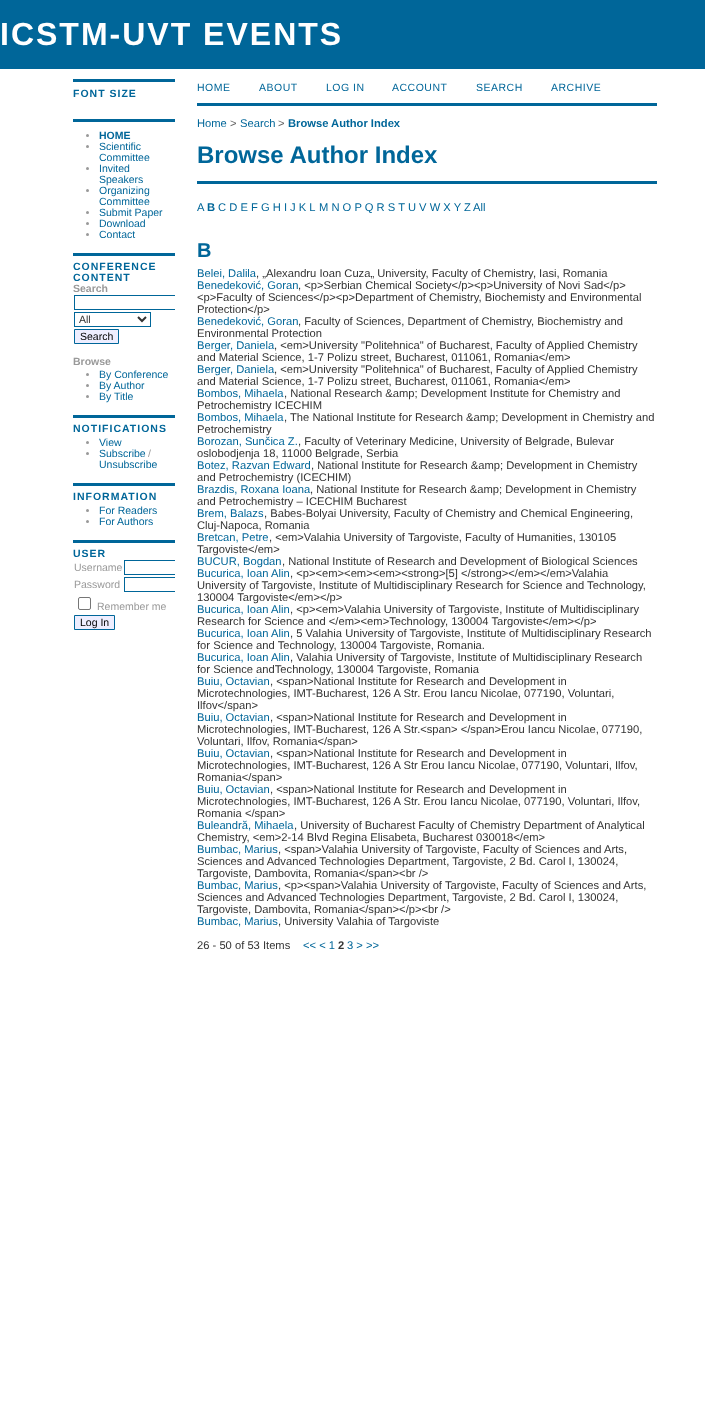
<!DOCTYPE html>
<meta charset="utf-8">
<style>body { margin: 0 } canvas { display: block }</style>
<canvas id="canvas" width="705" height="1406"></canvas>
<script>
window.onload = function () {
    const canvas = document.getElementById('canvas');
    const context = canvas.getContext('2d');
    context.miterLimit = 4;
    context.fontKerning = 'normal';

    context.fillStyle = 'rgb(255, 255, 255)';
    context.fillRect(0, 0, 705, 1406);
    context.fillStyle = 'rgb(0, 102, 153)';
    context.fillRect(0, 0, 705, 69);
    context.fillRect(73, 79, 102, 3);
    context.fillRect(73, 119, 102, 3);
    context.fillStyle = 'rgb(153, 153, 153)';
    context.beginPath();
    context.arc(87.5, 135.5, 1.5, 0, 2 * Math.PI);
    context.fill();
    context.beginPath();
    context.arc(87.5, 146.5, 1.5, 0, 2 * Math.PI);
    context.fill();
    context.beginPath();
    context.arc(87.5, 168.5, 1.5, 0, 2 * Math.PI);
    context.fill();
    context.beginPath();
    context.arc(87.5, 190.5, 1.5, 0, 2 * Math.PI);
    context.fill();
    context.beginPath();
    context.arc(87.5, 212.5, 1.5, 0, 2 * Math.PI);
    context.fill();
    context.beginPath();
    context.arc(87.5, 223.5, 1.5, 0, 2 * Math.PI);
    context.fill();
    context.beginPath();
    context.arc(87.5, 234.5, 1.5, 0, 2 * Math.PI);
    context.fill();
    context.fillStyle = 'rgb(0, 102, 153)';
    context.fillRect(73, 253, 102, 3);
    context.save();
    context.beginPath();
    context.rect(73, 69, 102, 578);
    context.clip();
    context.strokeStyle = 'rgb(0, 102, 153)';
    context.strokeRect(74.5, 295.5, 109, 14);
    context.restore();
    context.strokeStyle = 'rgb(0, 102, 153)';
    context.strokeRect(74.5, 312.5, 76, 14);
    context.beginPath();
    context.moveTo(138, 317);
    context.lineTo(142, 321);
    context.lineTo(146, 317);
    context.strokeStyle = 'rgb(51, 51, 51)';
    context.lineWidth = 2;
    context.stroke();
    context.fillStyle = 'rgb(238, 238, 255)';
    context.beginPath();
    context.rect(74.5, 329.5, 44, 14);
    context.fill();
    context.strokeStyle = 'rgb(0, 102, 153)';
    context.lineWidth = 1;
    context.stroke();
    context.fillStyle = 'rgb(153, 153, 153)';
    context.beginPath();
    context.arc(87.5, 374.5, 1.5, 0, 2 * Math.PI);
    context.fill();
    context.beginPath();
    context.arc(87.5, 385.5, 1.5, 0, 2 * Math.PI);
    context.fill();
    context.beginPath();
    context.arc(87.5, 396.5, 1.5, 0, 2 * Math.PI);
    context.fill();
    context.fillStyle = 'rgb(0, 102, 153)';
    context.fillRect(73, 415, 102, 3);
    context.fillStyle = 'rgb(153, 153, 153)';
    context.beginPath();
    context.arc(87.5, 442.5, 1.5, 0, 2 * Math.PI);
    context.fill();
    context.beginPath();
    context.arc(87.5, 453.5, 1.5, 0, 2 * Math.PI);
    context.fill();
    context.fillStyle = 'rgb(0, 102, 153)';
    context.fillRect(73, 483, 102, 3);
    context.fillStyle = 'rgb(153, 153, 153)';
    context.beginPath();
    context.arc(87.5, 510.5, 1.5, 0, 2 * Math.PI);
    context.fill();
    context.beginPath();
    context.arc(87.5, 521.5, 1.5, 0, 2 * Math.PI);
    context.fill();
    context.fillStyle = 'rgb(0, 102, 153)';
    context.fillRect(73, 540, 102, 3);
    context.save();
    context.beginPath();
    context.rect(73, 69, 102, 578);
    context.clip();
    context.strokeRect(124.5, 560.5, 91, 14);
    context.strokeRect(124.5, 577.5, 91, 14);
    context.restore();
    context.beginPath();
    context.roundRect(78.5, 597.5, 12, 12, 1.5);
    context.strokeStyle = 'rgb(118, 118, 118)';
    context.stroke();
    context.fillStyle = 'rgb(238, 238, 255)';
    context.beginPath();
    context.rect(74.5, 615.5, 40, 14);
    context.fill();
    context.strokeStyle = 'rgb(0, 102, 153)';
    context.stroke();
    context.fillStyle = 'rgb(0, 102, 153)';
    context.fillRect(197, 103, 460, 3);
    context.fillRect(197, 181, 460, 3);
    context.letterSpacing = '2px';
    context.font = 'bold 32px Liberation Sans';
    context.fillStyle = 'rgb(255, 255, 255)';
    context.fillText('ICSTM-UVT EVENTS', 0, 45);
    context.letterSpacing = '1px';
    context.font = 'bold 10.5px Liberation Sans';
    context.fillStyle = 'rgb(0, 102, 153)';
    context.fillText('FONT SIZE', 73, 97);
    context.letterSpacing = '0px';
    context.fillText('HOME', 99, 139);
    context.font = '10.5px Liberation Sans';
    context.fillText('Scientific', 99, 150);
    context.fillText('Committee', 99, 161);
    context.fillText('Invited', 99, 172);
    context.fillText('Speakers', 99, 183);
    context.fillText('Organizing', 99, 194);
    context.fillText('Committee', 99, 205);
    context.fillText('Submit Paper', 99, 216);
    context.fillText('Download', 99, 227);
    context.fillText('Contact', 99, 238);
    context.letterSpacing = '1px';
    context.font = 'bold 10.5px Liberation Sans';
    context.fillText('CONFERENCE', 73, 270);
    context.fillText('CONTENT', 73, 281);
    context.letterSpacing = '0px';
    context.fillStyle = 'rgb(153, 153, 153)';
    context.fillText('Search', 73, 292);
    context.font = '10.5px Liberation Sans';
    context.fillStyle = 'rgb(51, 51, 51)';
    context.fillText('All', 79, 323);
    context.fillStyle = 'rgb(0, 0, 0)';
    context.fillText('Search', 80, 340);
    context.font = 'bold 10.5px Liberation Sans';
    context.fillStyle = 'rgb(153, 153, 153)';
    context.fillText('Browse', 73, 365);
    context.font = '10.5px Liberation Sans';
    context.fillStyle = 'rgb(0, 102, 153)';
    context.fillText('By Conference', 99, 378);
    context.fillText('By Author', 99, 389);
    context.fillText('By Title', 99, 400);
    context.letterSpacing = '1px';
    context.font = 'bold 10.5px Liberation Sans';
    context.fillText('NOTIFICATIONS', 73, 432);
    context.letterSpacing = '0px';
    context.font = '10.5px Liberation Sans';
    context.fillText('View', 99, 446);
    context.fillText('Subscribe', 99, 457);
    context.fillStyle = 'rgb(153, 153, 153)';
    context.fillText('/', 148, 457);
    context.fillStyle = 'rgb(0, 102, 153)';
    context.fillText('Unsubscribe', 99, 468);
    context.letterSpacing = '1px';
    context.font = 'bold 10.5px Liberation Sans';
    context.fillText('INFORMATION', 73, 500);
    context.letterSpacing = '0px';
    context.font = '10.5px Liberation Sans';
    context.fillText('For Readers', 99, 514);
    context.fillText('For Authors', 99, 525);
    context.letterSpacing = '1px';
    context.font = 'bold 10.5px Liberation Sans';
    context.fillText('USER', 73, 557);
    context.letterSpacing = '0px';
    context.font = '10.5px Liberation Sans';
    context.fillStyle = 'rgb(153, 153, 153)';
    context.fillText('Username', 74, 571);
    context.fillText('Password', 74, 588);
    context.fillText('Remember me', 97, 610);
    context.fillStyle = 'rgb(0, 0, 0)';
    context.fillText('Log In', 80, 626);
    context.letterSpacing = '0.5px';
    context.fillStyle = 'rgb(0, 102, 153)';
    context.fillText('HOME', 197, 91);
    context.fillText('ABOUT', 259, 91);
    context.fillText('LOG IN', 326, 91);
    context.fillText('ACCOUNT', 392, 91);
    context.fillText('SEARCH', 476, 91);
    context.fillText('ARCHIVE', 551, 91);
    context.letterSpacing = '0px';
    context.font = '11.2px Liberation Sans';
    context.fillText('Home', 197, 127);
    context.fillStyle = 'rgb(102, 102, 102)';
    context.fillText('>', 230, 127);
    context.fillStyle = 'rgb(0, 102, 153)';
    context.fillText('Search', 240, 127);
    context.fillStyle = 'rgb(102, 102, 102)';
    context.fillText('>', 278, 127);
    context.font = 'bold 11.2px Liberation Sans';
    context.fillStyle = 'rgb(0, 102, 153)';
    context.fillText('Browse Author Index', 288, 127);
    context.font = 'bold 24px Liberation Sans';
    context.fillText('Browse Author Index', 197, 163);
    context.font = '11.2px Liberation Sans';
    context.fillText('A', 197, 211);
    context.font = 'bold 11.2px Liberation Sans';
    context.fillText('B', 207, 211);
    context.font = '11.2px Liberation Sans';
    context.fillText('C D E F G H I J K L', 218, 211);
    context.fillText('M N O P Q R S T U V W X Y Z', 319, 211);
    context.fillText('All', 473, 211);
    context.font = 'bold 20px Liberation Sans';
    context.fillText('B', 197, 257);
    context.font = '11.2px Liberation Sans';
    context.fillText('Belei, Dalila', 197, 277);
    context.fillStyle = 'rgb(51, 51, 51)';
    context.fillText(', „Alexandru Ioan Cuza„ University, Faculty of Chemistry, Iasi, Romania', 256, 277);
    context.fillStyle = 'rgb(0, 102, 153)';
    context.fillText('Benedeković, Goran', 197, 289);
    context.fillStyle = 'rgb(51, 51, 51)';
    context.fillText(', <p>Serbian Chemical Society<\/p><p>University of Novi Sad<\/p>', 298, 289);
    context.fillText('<p>Faculty of Sciences<\/p><p>Department of Chemistry, Biochemisty and Environmental', 197, 301);
    context.fillText('Protection<\/p>', 197, 313);
    context.fillStyle = 'rgb(0, 102, 153)';
    context.fillText('Benedeković, Goran', 197, 325);
    context.fillStyle = 'rgb(51, 51, 51)';
    context.fillText(', Faculty of Sciences, Department of Chemistry, Biochemistry and', 298, 325);
    context.fillText('Environmental Protection', 197, 337);
    context.fillStyle = 'rgb(0, 102, 153)';
    context.fillText('Berger, Daniela', 197, 349);
    context.fillStyle = 'rgb(51, 51, 51)';
    context.fillText(', <em>University "Politehnica" of Bucharest, Faculty of Applied Chemistry', 274, 349);
    context.fillText('and Material Science, 1-7 Polizu street, Bucharest, 011061, Romania<\/em>', 197, 361);
    context.fillStyle = 'rgb(0, 102, 153)';
    context.fillText('Berger, Daniela', 197, 373);
    context.fillStyle = 'rgb(51, 51, 51)';
    context.fillText(', <em>University "Politehnica" of Bucharest, Faculty of Applied Chemistry', 274, 373);
    context.fillText('and Material Science, 1-7 Polizu street, Bucharest, 011061, Romania<\/em>', 197, 385);
    context.fillStyle = 'rgb(0, 102, 153)';
    context.fillText('Bombos, Mihaela', 197, 397);
    context.fillStyle = 'rgb(51, 51, 51)';
    context.fillText(', National Research &amp; Development Institute for Chemistry and', 284, 397);
    context.fillText('Petrochemistry ICECHIM', 197, 409);
    context.fillStyle = 'rgb(0, 102, 153)';
    context.fillText('Bombos, Mihaela', 197, 421);
    context.fillStyle = 'rgb(51, 51, 51)';
    context.fillText(', The National Institute for Research &amp; Development in Chemistry and', 284, 421);
    context.fillText('Petrochemistry', 197, 433);
    context.fillStyle = 'rgb(0, 102, 153)';
    context.fillText('Borozan, Sunčica Z.', 197, 445);
    context.fillStyle = 'rgb(51, 51, 51)';
    context.fillText(', Faculty of Veterinary Medicine, University of Belgrade, Bulevar', 298, 445);
    context.fillText('oslobodjenja 18, 11000 Belgrade, Serbia', 197, 457);
    context.fillStyle = 'rgb(0, 102, 153)';
    context.fillText('Botez, Razvan Edward', 197, 469);
    context.fillStyle = 'rgb(51, 51, 51)';
    context.fillText(', National Institute for Research &amp; Development in Chemistry', 311, 469);
    context.fillText('and Petrochemistry (ICECHIM)', 197, 481);
    context.fillStyle = 'rgb(0, 102, 153)';
    context.fillText('Brazdis, Roxana Ioana', 197, 493);
    context.fillStyle = 'rgb(51, 51, 51)';
    context.fillText(', National Institute for Research &amp; Development in Chemistry', 310, 493);
    context.fillText('and Petrochemistry – ICECHIM Bucharest', 197, 505);
    context.fillStyle = 'rgb(0, 102, 153)';
    context.fillText('Brem, Balazs', 197, 517);
    context.fillStyle = 'rgb(51, 51, 51)';
    context.fillText(', Babes-Bolyai University, Faculty of Chemistry and Chemical Engineering,', 264, 517);
    context.fillText('Cluj-Napoca, Romania', 197, 529);
    context.fillStyle = 'rgb(0, 102, 153)';
    context.fillText('Bretcan, Petre', 197, 541);
    context.fillStyle = 'rgb(51, 51, 51)';
    context.fillText(', <em>Valahia University of Targoviste, Faculty of Humanities, 130105', 269, 541);
    context.fillText('Targoviste<\/em>', 197, 553);
    context.fillStyle = 'rgb(0, 102, 153)';
    context.fillText('BUCUR, Bogdan', 197, 565);
    context.fillStyle = 'rgb(51, 51, 51)';
    context.fillText(', National Institute of Research and Development of Biological Sciences', 282, 565);
    context.fillStyle = 'rgb(0, 102, 153)';
    context.fillText('Bucurica, Ioan Alin', 197, 577);
    context.fillStyle = 'rgb(51, 51, 51)';
    context.fillText(', <p><em><em><em><strong>[5] <\/strong><\/em><\/em>Valahia', 290, 577);
    context.fillText('University of Targoviste, Institute of Multidisciplinary Research for Science and Technology,', 197, 589);
    context.fillText('130004 Targoviste<\/em><\/p>', 197, 601);
    context.fillStyle = 'rgb(0, 102, 153)';
    context.fillText('Bucurica, Ioan Alin', 197, 613);
    context.fillStyle = 'rgb(51, 51, 51)';
    context.fillText(', <p><em>Valahia University of Targoviste, Institute of Multidisciplinary', 290, 613);
    context.fillText('Research for Science and <\/em><em>Technology, 130004 Targoviste<\/em><\/p>', 197, 625);
    context.fillStyle = 'rgb(0, 102, 153)';
    context.fillText('Bucurica, Ioan Alin', 197, 637);
    context.fillStyle = 'rgb(51, 51, 51)';
    context.fillText(', 5 Valahia University of Targoviste, Institute of Multidisciplinary Research', 290, 637);
    context.fillText('for Science and Technology, 130004 Targoviste, Romania.', 197, 649);
    context.fillStyle = 'rgb(0, 102, 153)';
    context.fillText('Bucurica, Ioan Alin', 197, 661);
    context.fillStyle = 'rgb(51, 51, 51)';
    context.fillText(', Valahia University of Targoviste, Institute of Multidisciplinary Research', 290, 661);
    context.fillText('for Science andTechnology, 130004 Targoviste, Romania', 197, 673);
    context.fillStyle = 'rgb(0, 102, 153)';
    context.fillText('Buiu, Octavian', 197, 685);
    context.fillStyle = 'rgb(51, 51, 51)';
    context.fillText(', <span>National Institute for Research and Development in', 270, 685);
    context.fillText('Microtechnologies, IMT-Bucharest, 126 A Str. Erou Iancu Nicolae, 077190, Voluntari,', 197, 697);
    context.fillText('Ilfov<\/span>', 197, 709);
    context.fillStyle = 'rgb(0, 102, 153)';
    context.fillText('Buiu, Octavian', 197, 721);
    context.fillStyle = 'rgb(51, 51, 51)';
    context.fillText(', <span>National Institute for Research and Development in', 270, 721);
    context.fillText('Microtechnologies, IMT-Bucharest, 126 A Str.<span> <\/span>Erou Iancu Nicolae, 077190,', 197, 733);
    context.fillText('Voluntari, Ilfov, Romania<\/span>', 197, 745);
    context.fillStyle = 'rgb(0, 102, 153)';
    context.fillText('Buiu, Octavian', 197, 757);
    context.fillStyle = 'rgb(51, 51, 51)';
    context.fillText(', <span>National Institute for Research and Development in', 270, 757);
    context.fillText('Microtechnologies, IMT-Bucharest, 126 A Str Erou Iancu Nicolae, 077190, Voluntari, Ilfov,', 197, 769);
    context.fillText('Romania<\/span>', 197, 781);
    context.fillStyle = 'rgb(0, 102, 153)';
    context.fillText('Buiu, Octavian', 197, 793);
    context.fillStyle = 'rgb(51, 51, 51)';
    context.fillText(', <span>National Institute for Research and Development in', 270, 793);
    context.fillText('Microtechnologies, IMT-Bucharest, 126 A Str. Erou Iancu Nicolae, 077190, Voluntari, Ilfov,', 197, 805);
    context.fillText('Romania <\/span>', 197, 817);
    context.fillStyle = 'rgb(0, 102, 153)';
    context.fillText('Buleandră, Mihaela', 197, 829);
    context.fillStyle = 'rgb(51, 51, 51)';
    context.fillText(', University of Bucharest Faculty of Chemistry Department of Analytical', 294, 829);
    context.fillText('Chemistry, <em>2-14 Blvd Regina Elisabeta, Bucharest 030018<\/em>', 197, 841);
    context.fillStyle = 'rgb(0, 102, 153)';
    context.fillText('Bumbac, Marius', 197, 853);
    context.fillStyle = 'rgb(51, 51, 51)';
    context.fillText(', <span>Valahia University of Targoviste, Faculty of Sciences and Arts,', 278, 853);
    context.fillText('Sciences and Advanced Technologies Department, Targoviste, 2 Bd. Carol I, 130024,', 197, 865);
    context.fillText('Targoviste, Dambovita, Romania<\/span><br />', 197, 877);
    context.fillStyle = 'rgb(0, 102, 153)';
    context.fillText('Bumbac, Marius', 197, 889);
    context.fillStyle = 'rgb(51, 51, 51)';
    context.fillText(', <p><span>Valahia University of Targoviste, Faculty of Sciences and Arts,', 278, 889);
    context.fillText('Sciences and Advanced Technologies Department, Targoviste, 2 Bd. Carol I, 130024,', 197, 901);
    context.fillText('Targoviste, Dambovita, Romania<\/span><\/p><br />', 197, 913);
    context.fillStyle = 'rgb(0, 102, 153)';
    context.fillText('Bumbac, Marius', 197, 925);
    context.fillStyle = 'rgb(51, 51, 51)';
    context.fillText(', University Valahia of Targoviste', 278, 925);
    context.fillText('26 - 50 of 53 Items', 197, 949);
    context.fillStyle = 'rgb(0, 102, 153)';
    context.fillText('<< < 1', 303, 949);
    context.font = 'bold 11.2px Liberation Sans';
    context.fillStyle = 'rgb(51, 51, 51)';
    context.fillText('2', 338, 949);
    context.font = '11.2px Liberation Sans';
    context.fillStyle = 'rgb(0, 102, 153)';
    context.fillText('3 > >>', 347, 949);
};
</script>
